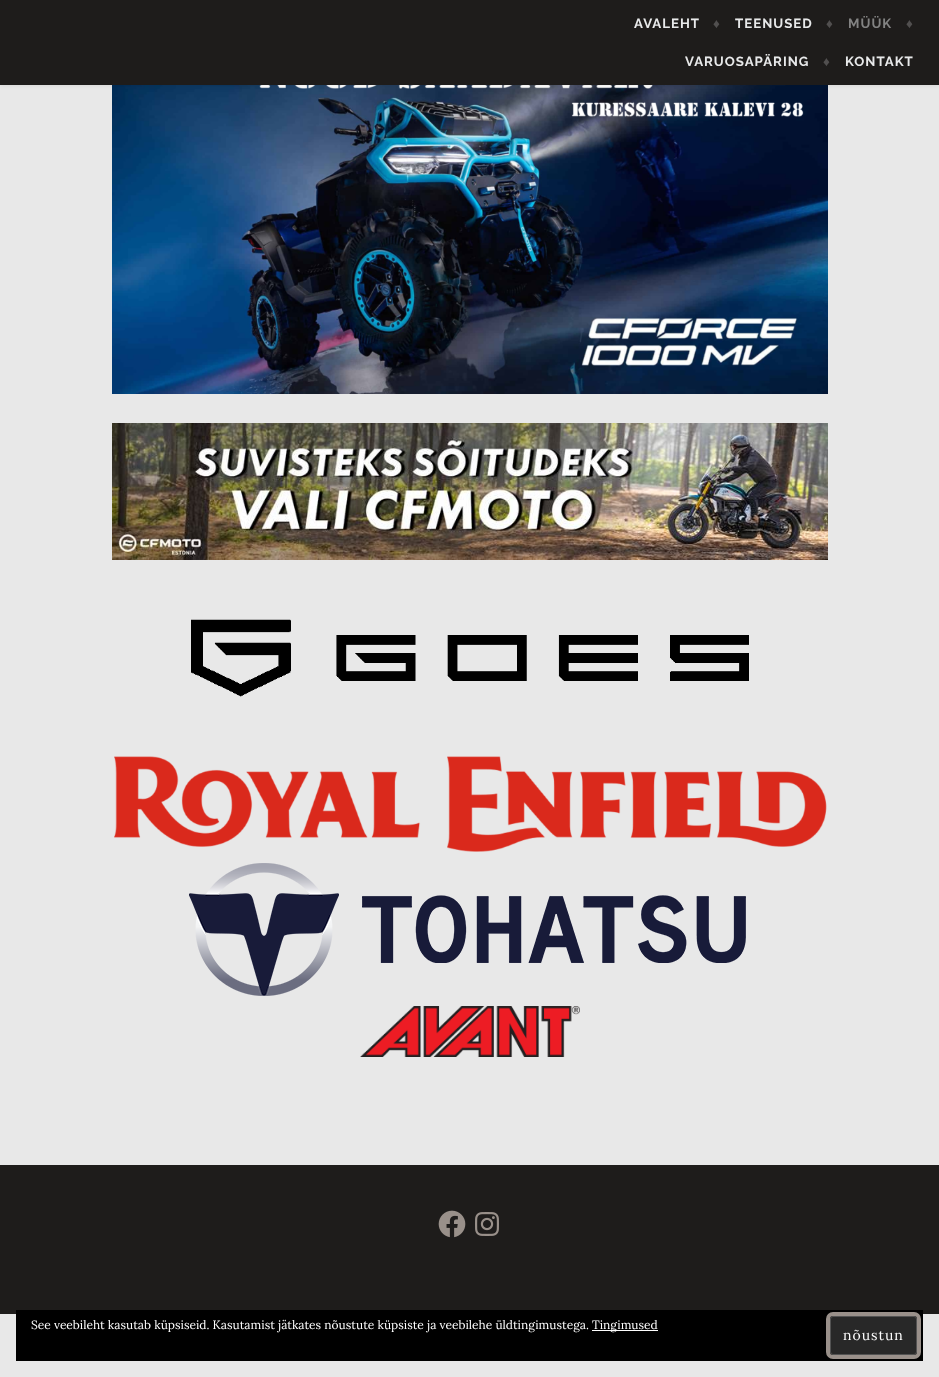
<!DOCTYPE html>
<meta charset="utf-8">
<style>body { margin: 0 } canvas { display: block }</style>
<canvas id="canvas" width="939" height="1377"></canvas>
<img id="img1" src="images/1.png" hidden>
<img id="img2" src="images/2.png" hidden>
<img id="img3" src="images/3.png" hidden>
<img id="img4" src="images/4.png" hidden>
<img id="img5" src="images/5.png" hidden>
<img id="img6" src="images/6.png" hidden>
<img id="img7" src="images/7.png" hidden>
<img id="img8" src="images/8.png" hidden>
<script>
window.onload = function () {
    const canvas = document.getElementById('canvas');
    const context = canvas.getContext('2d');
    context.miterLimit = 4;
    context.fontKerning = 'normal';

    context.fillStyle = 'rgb(232, 232, 232)';
    context.fillRect(0, 0, 939, 1377);
    context.drawImage(document.getElementById('img1'), 112, 85, 716, 309);
    context.fillStyle = 'rgba(0, 0, 0, 0.1)';
    context.filter = 'blur(2.5px)';
    context.beginPath();
    context.rect(0, 0, 939, 85);
    context.fill();
    context.filter = 'none';
    context.fillStyle = 'rgb(30, 28, 27)';
    context.fillRect(0, 0, 939, 85);
    context.drawImage(document.getElementById('img2'), 112, 423, 716, 137);
    context.drawImage(document.getElementById('img3'), 191, 619, 558, 78);
    context.drawImage(document.getElementById('img4'), 114, 756, 713, 96);
    context.drawImage(document.getElementById('img5'), 189, 863, 557, 133);
    context.drawImage(document.getElementById('img6'), 360, 1006, 220, 51);
    context.fillRect(0, 1165, 939, 149);
    context.drawImage(document.getElementById('img7'), 438, 1210, 28, 28);
    context.drawImage(document.getElementById('img8'), 475, 1212, 24, 24);
    context.fillStyle = 'rgb(0, 0, 0)';
    context.fillRect(16, 1310, 907, 51);
    context.fillStyle = 'rgb(255, 255, 255)';
    context.fillRect(592, 1330, 66, 1);
    context.fillStyle = 'rgb(40, 40, 40)';
    context.beginPath();
    context.roundRect(830.5, 1316.5, 86, 38, 2.5);
    context.fill();
    context.strokeStyle = 'rgb(83, 83, 83)';
    context.stroke();
    context.beginPath();
    context.roundRect(828, 1314, 91, 43, 5);
    context.strokeStyle = 'rgb(153, 144, 138)';
    context.lineWidth = 4;
    context.stroke();
    context.letterSpacing = '1px';
    context.font = 'bold 13.25px Raleway';
    context.fillStyle = 'rgb(232, 233, 234)';
    context.fillText('AVALEHT', 634, 28);
    context.font = 'bold 13.25px Liberation Sans';
    context.fillStyle = 'rgb(81, 79, 79)';
    context.fillText('♦', 713, 28);
    context.font = 'bold 13.25px Raleway';
    context.fillStyle = 'rgb(232, 233, 234)';
    context.fillText('TEENUSED', 735, 28);
    context.font = 'bold 13.25px Liberation Sans';
    context.fillStyle = 'rgb(81, 79, 79)';
    context.fillText('♦', 826, 28);
    context.font = 'bold 13.25px Raleway';
    context.fillStyle = 'rgb(131, 131, 131)';
    context.fillText('MÜÜK', 848, 28);
    context.font = 'bold 13.25px Liberation Sans';
    context.fillStyle = 'rgb(81, 79, 79)';
    context.fillText('♦', 906, 28);
    context.font = 'bold 13.25px Raleway';
    context.fillStyle = 'rgb(232, 233, 234)';
    context.fillText('VARUOSAPÄRING', 685, 66);
    context.font = 'bold 13.25px Liberation Sans';
    context.fillStyle = 'rgb(81, 79, 79)';
    context.fillText('♦', 823, 66);
    context.font = 'bold 13.25px Raleway';
    context.fillStyle = 'rgb(232, 233, 234)';
    context.fillText('KONTAKT', 845, 66);
    context.letterSpacing = '0px';
    context.font = '12px Lora';
    context.fillStyle = 'rgb(255, 255, 255)';
    context.fillText('See veebileht kasutab küpsiseid. Kasutamist jätkates nõustute küpsiste ja veebilehe üldtingimustega.', 31, 1329);
    context.fillText('Tingimused', 592, 1329);
    context.letterSpacing = '1px';
    context.font = '14px Lora';
    context.fillText('nõustun', 843, 1340);
};
</script>
